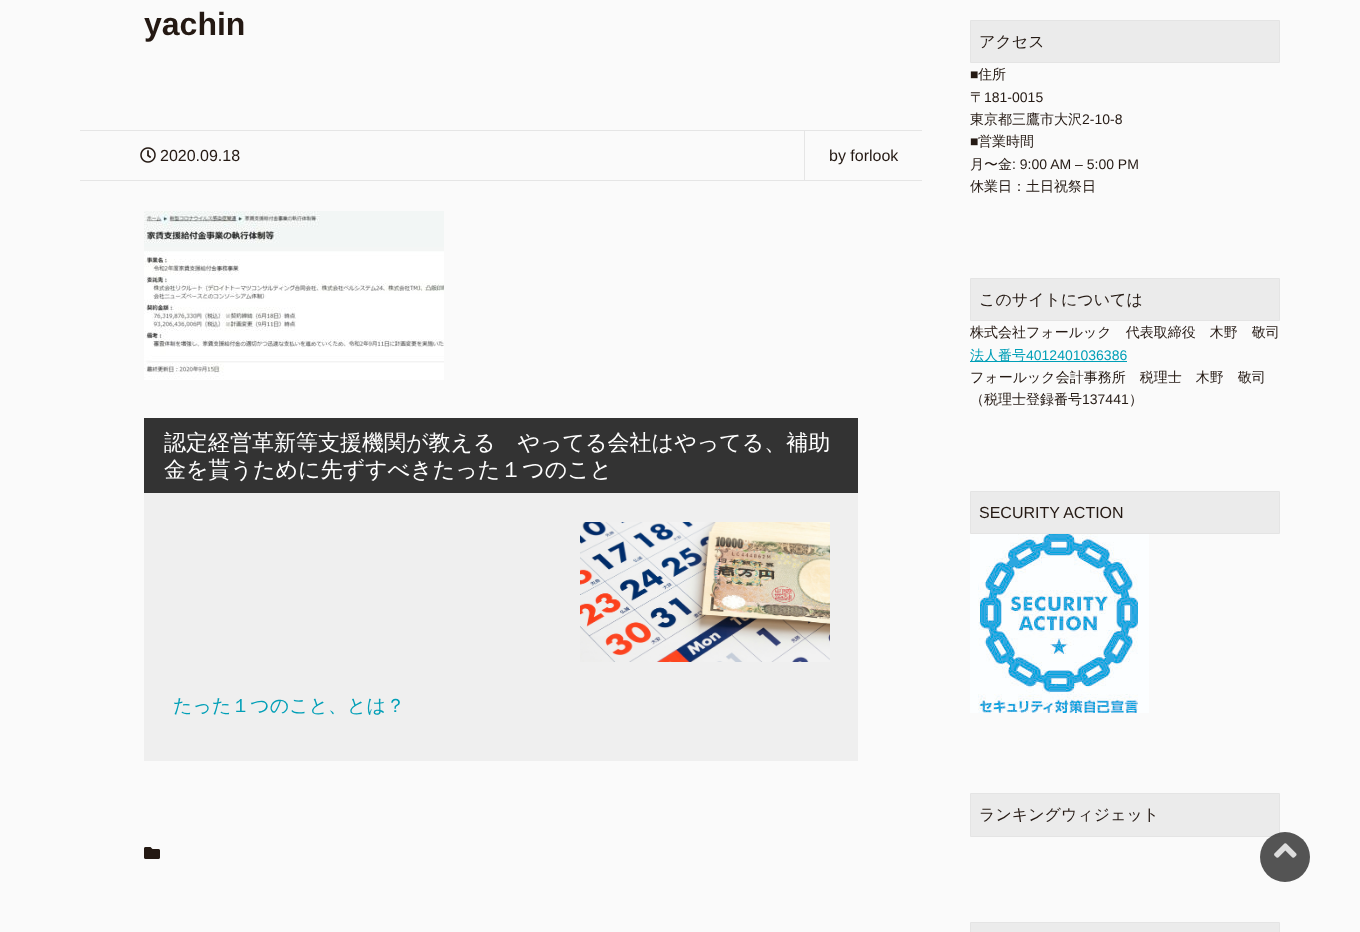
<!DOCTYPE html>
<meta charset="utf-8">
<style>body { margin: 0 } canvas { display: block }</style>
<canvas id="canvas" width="1360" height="932"></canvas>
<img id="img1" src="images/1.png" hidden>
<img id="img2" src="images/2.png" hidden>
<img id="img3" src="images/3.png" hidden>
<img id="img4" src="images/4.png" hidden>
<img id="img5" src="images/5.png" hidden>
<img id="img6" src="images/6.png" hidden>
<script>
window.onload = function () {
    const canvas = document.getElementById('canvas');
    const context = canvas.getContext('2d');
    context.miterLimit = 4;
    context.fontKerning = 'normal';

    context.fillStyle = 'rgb(250, 250, 250)';
    context.fillRect(0, 0, 1360, 932);
    context.fillStyle = 'rgb(229, 229, 229)';
    context.fillRect(80, 130, 842, 1);
    context.fillRect(80, 180, 842, 1);
    context.drawImage(document.getElementById('img1'), 140, 147, 16, 16);
    context.fillRect(804, 131, 1, 49);
    context.drawImage(document.getElementById('img2'), 144, 211, 300, 169);
    context.fillStyle = 'rgb(239, 239, 239)';
    context.fillRect(144, 493, 714, 268);
    context.fillStyle = 'rgb(51, 51, 51)';
    context.fillRect(144, 418, 714, 75);
    context.drawImage(document.getElementById('img3'), 580, 522, 250, 140);
    context.drawImage(document.getElementById('img4'), 144, 847, 16, 12);
    context.fillStyle = 'rgb(235, 235, 235)';
    context.beginPath();
    context.rect(970.5, 20.5, 309, 42);
    context.fill();
    context.strokeStyle = 'rgb(228, 228, 228)';
    context.stroke();
    context.beginPath();
    context.rect(970.5, 278.5, 309, 42);
    context.fill();
    context.stroke();
    context.fillStyle = 'rgb(0, 159, 183)';
    context.fillRect(970, 361, 157, 1);
    context.fillStyle = 'rgb(235, 235, 235)';
    context.beginPath();
    context.rect(970.5, 491.5, 309, 42);
    context.fill();
    context.stroke();
    context.drawImage(document.getElementById('img5'), 970, 534, 179, 179);
    context.beginPath();
    context.rect(970.5, 793.5, 309, 43);
    context.fill();
    context.stroke();
    context.beginPath();
    context.rect(970.5, 922.5, 309, 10);
    context.fill();
    context.stroke();
    context.fillStyle = 'rgba(43, 43, 43, 0.8)';
    context.beginPath();
    context.arc(1285, 857, 25, 0, 2 * Math.PI);
    context.fill();
    context.drawImage(document.getElementById('img6'), 1274, 843, 23, 15);
    context.font = 'bold 32px Liberation Sans';
    context.fillStyle = 'rgb(36, 25, 19)';
    context.fillText('yachin', 144, 35);
    context.font = '16px Liberation Sans';
    context.fillText('2020.09.18', 160, 161);
    context.fillText('by forlook', 829, 161);
    context.font = '500 22px WenQuanYi Zen Hei';
    context.fillStyle = 'rgb(255, 255, 255)';
    context.fillText('認定経営革新等支援機関が教える　やってる会社はやってる、補助', 164, 450);
    context.fillText('金を貰うために先ずすべきたった１つのこと', 164, 477);
    context.font = '500 19px WenQuanYi Zen Hei';
    context.fillStyle = 'rgb(0, 159, 183)';
    context.fillText('たった１つのこと、とは？', 173, 712);
    context.font = '500 16px WenQuanYi Zen Hei';
    context.fillStyle = 'rgb(36, 25, 19)';
    context.fillText('アクセス', 979, 47);
    context.font = '14px Liberation Sans';
    context.fillText('■', 970, 79);
    context.font = '500 14px WenQuanYi Zen Hei';
    context.fillText('住所', 978, 79);
    context.fillText('〒', 970, 102);
    context.font = '14px Liberation Sans';
    context.fillText('181-0015', 984, 102);
    context.font = '500 14px WenQuanYi Zen Hei';
    context.fillText('東京都三鷹市大沢', 970, 124);
    context.font = '14px Liberation Sans';
    context.fillText('2-10-8', 1082, 124);
    context.fillText('■', 970, 146);
    context.font = '500 14px WenQuanYi Zen Hei';
    context.fillText('営業時間', 978, 146);
    context.fillText('月〜金', 970, 169);
    context.font = '14px Liberation Sans';
    context.fillText(': 9:00 AM – 5:00 PM', 1012, 169);
    context.font = '500 14px WenQuanYi Zen Hei';
    context.fillText('休業日：土日祝祭日', 970, 191);
    context.font = '500 16px WenQuanYi Zen Hei';
    context.fillText('このサイトについては', 979, 305);
    context.font = '500 14px WenQuanYi Zen Hei';
    context.fillText('株式会社フォールック　代表取締役　木野　敬司', 970, 337);
    context.fillStyle = 'rgb(0, 159, 183)';
    context.fillText('法人番号', 970, 360);
    context.font = '14px Liberation Sans';
    context.fillText('4012401036386', 1026, 360);
    context.font = '500 14px WenQuanYi Zen Hei';
    context.fillStyle = 'rgb(36, 25, 19)';
    context.fillText('フォールック会計事務所　税理士　木野　敬司', 970, 382);
    context.fillText('（税理士登録番号', 970, 404);
    context.font = '14px Liberation Sans';
    context.fillText('137441', 1082, 404);
    context.font = '500 14px WenQuanYi Zen Hei';
    context.fillText('）', 1129, 404);
    context.font = '16px Liberation Sans';
    context.fillText('SECURITY ACTION', 979, 518);
    context.font = '500 16px WenQuanYi Zen Hei';
    context.fillText('ランキングウィジェット', 979, 820);
};
</script>
